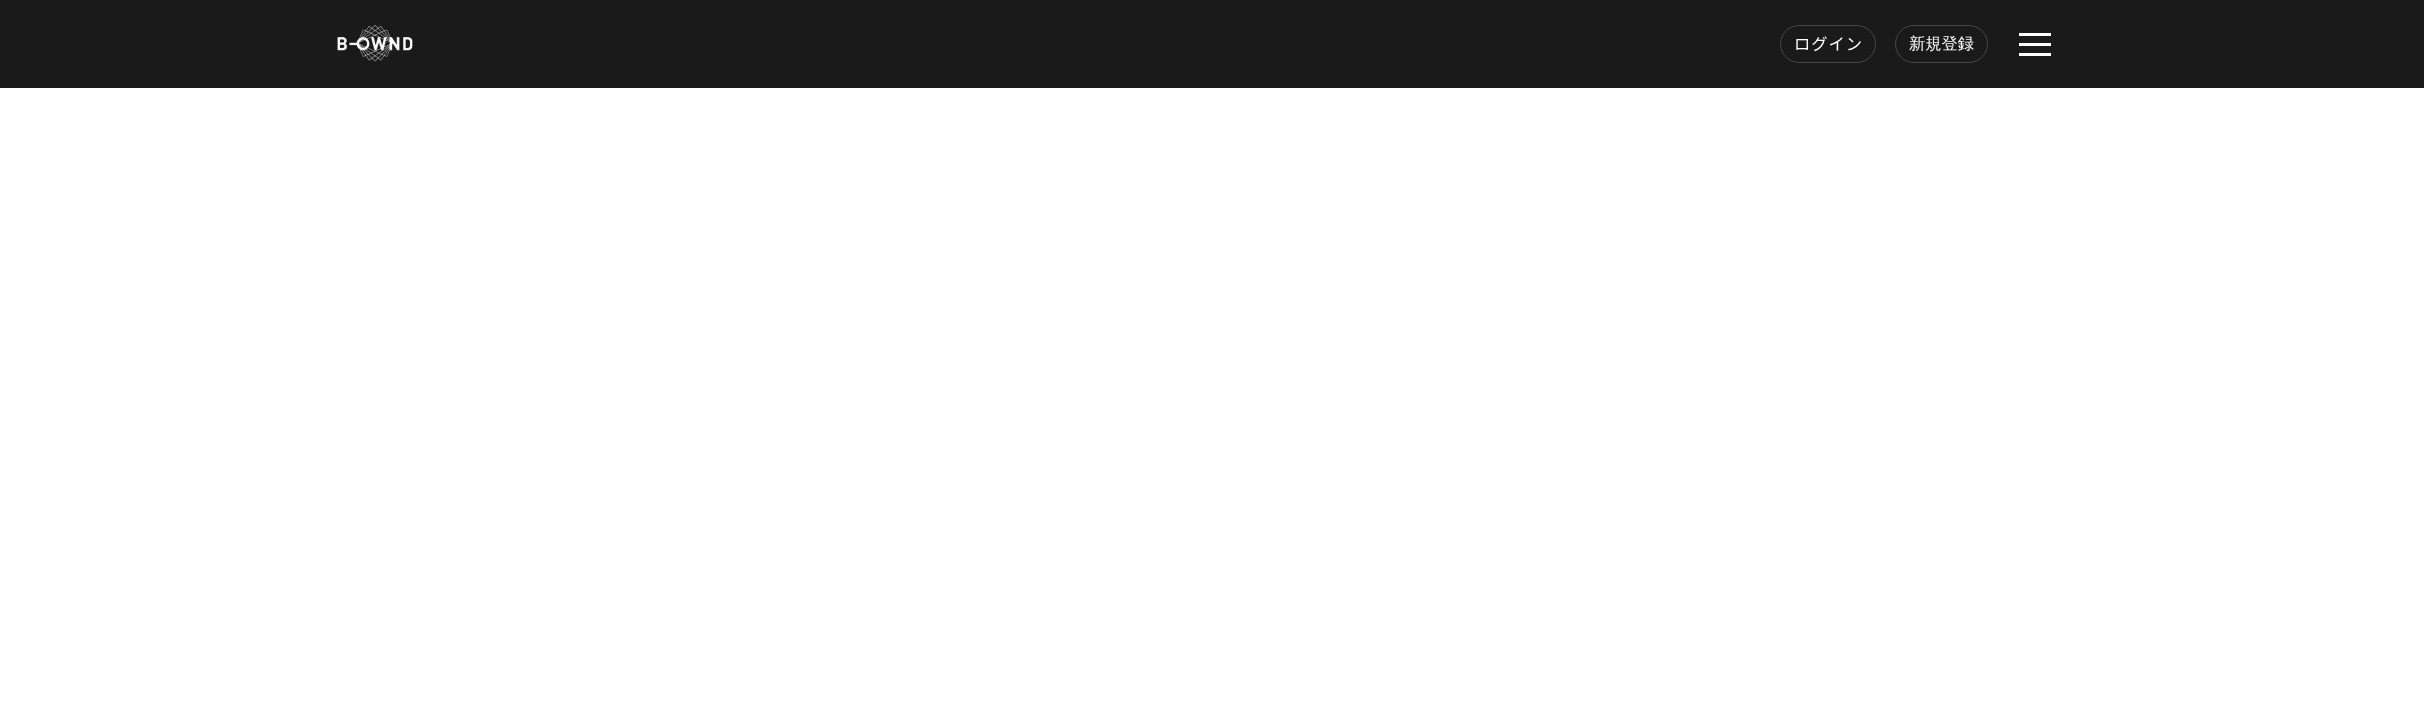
<!DOCTYPE html>
<meta charset="utf-8">
<style>body { margin: 0 } canvas { display: block }</style>
<canvas id="canvas" width="2424" height="707"></canvas>
<img id="img1" src="images/1.png" hidden>
<script>
window.onload = function () {
    const canvas = document.getElementById('canvas');
    const context = canvas.getContext('2d');
    context.miterLimit = 4;
    context.fontKerning = 'normal';

    context.fillStyle = 'rgb(255, 255, 255)';
    context.fillRect(0, 0, 2424, 707);
    context.fillStyle = 'rgb(26, 26, 26)';
    context.fillRect(0, 0, 2424, 88);
    context.drawImage(document.getElementById('img1'), 337, 25, 76, 37);
    context.beginPath();
    context.roundRect(1780.5, 25.5, 95, 37, 18.5);
    context.strokeStyle = 'rgb(72, 72, 72)';
    context.stroke();
    context.beginPath();
    context.roundRect(1895.5, 25.5, 92, 37, 18.5);
    context.stroke();
    context.fillStyle = 'rgb(255, 255, 255)';
    context.fillRect(2019, 33, 32, 3);
    context.fillRect(2019, 43, 32, 3);
    context.fillRect(2019, 53, 32, 3);
    context.letterSpacing = '1px';
    context.font = '16.25px Noto Sans JP';
    context.fillText('ログイン', 1794, 50);
    context.letterSpacing = '0px';
    context.font = '500 16.25px WenQuanYi Zen Hei';
    context.fillText('新規登録', 1909, 49);
};
</script>
